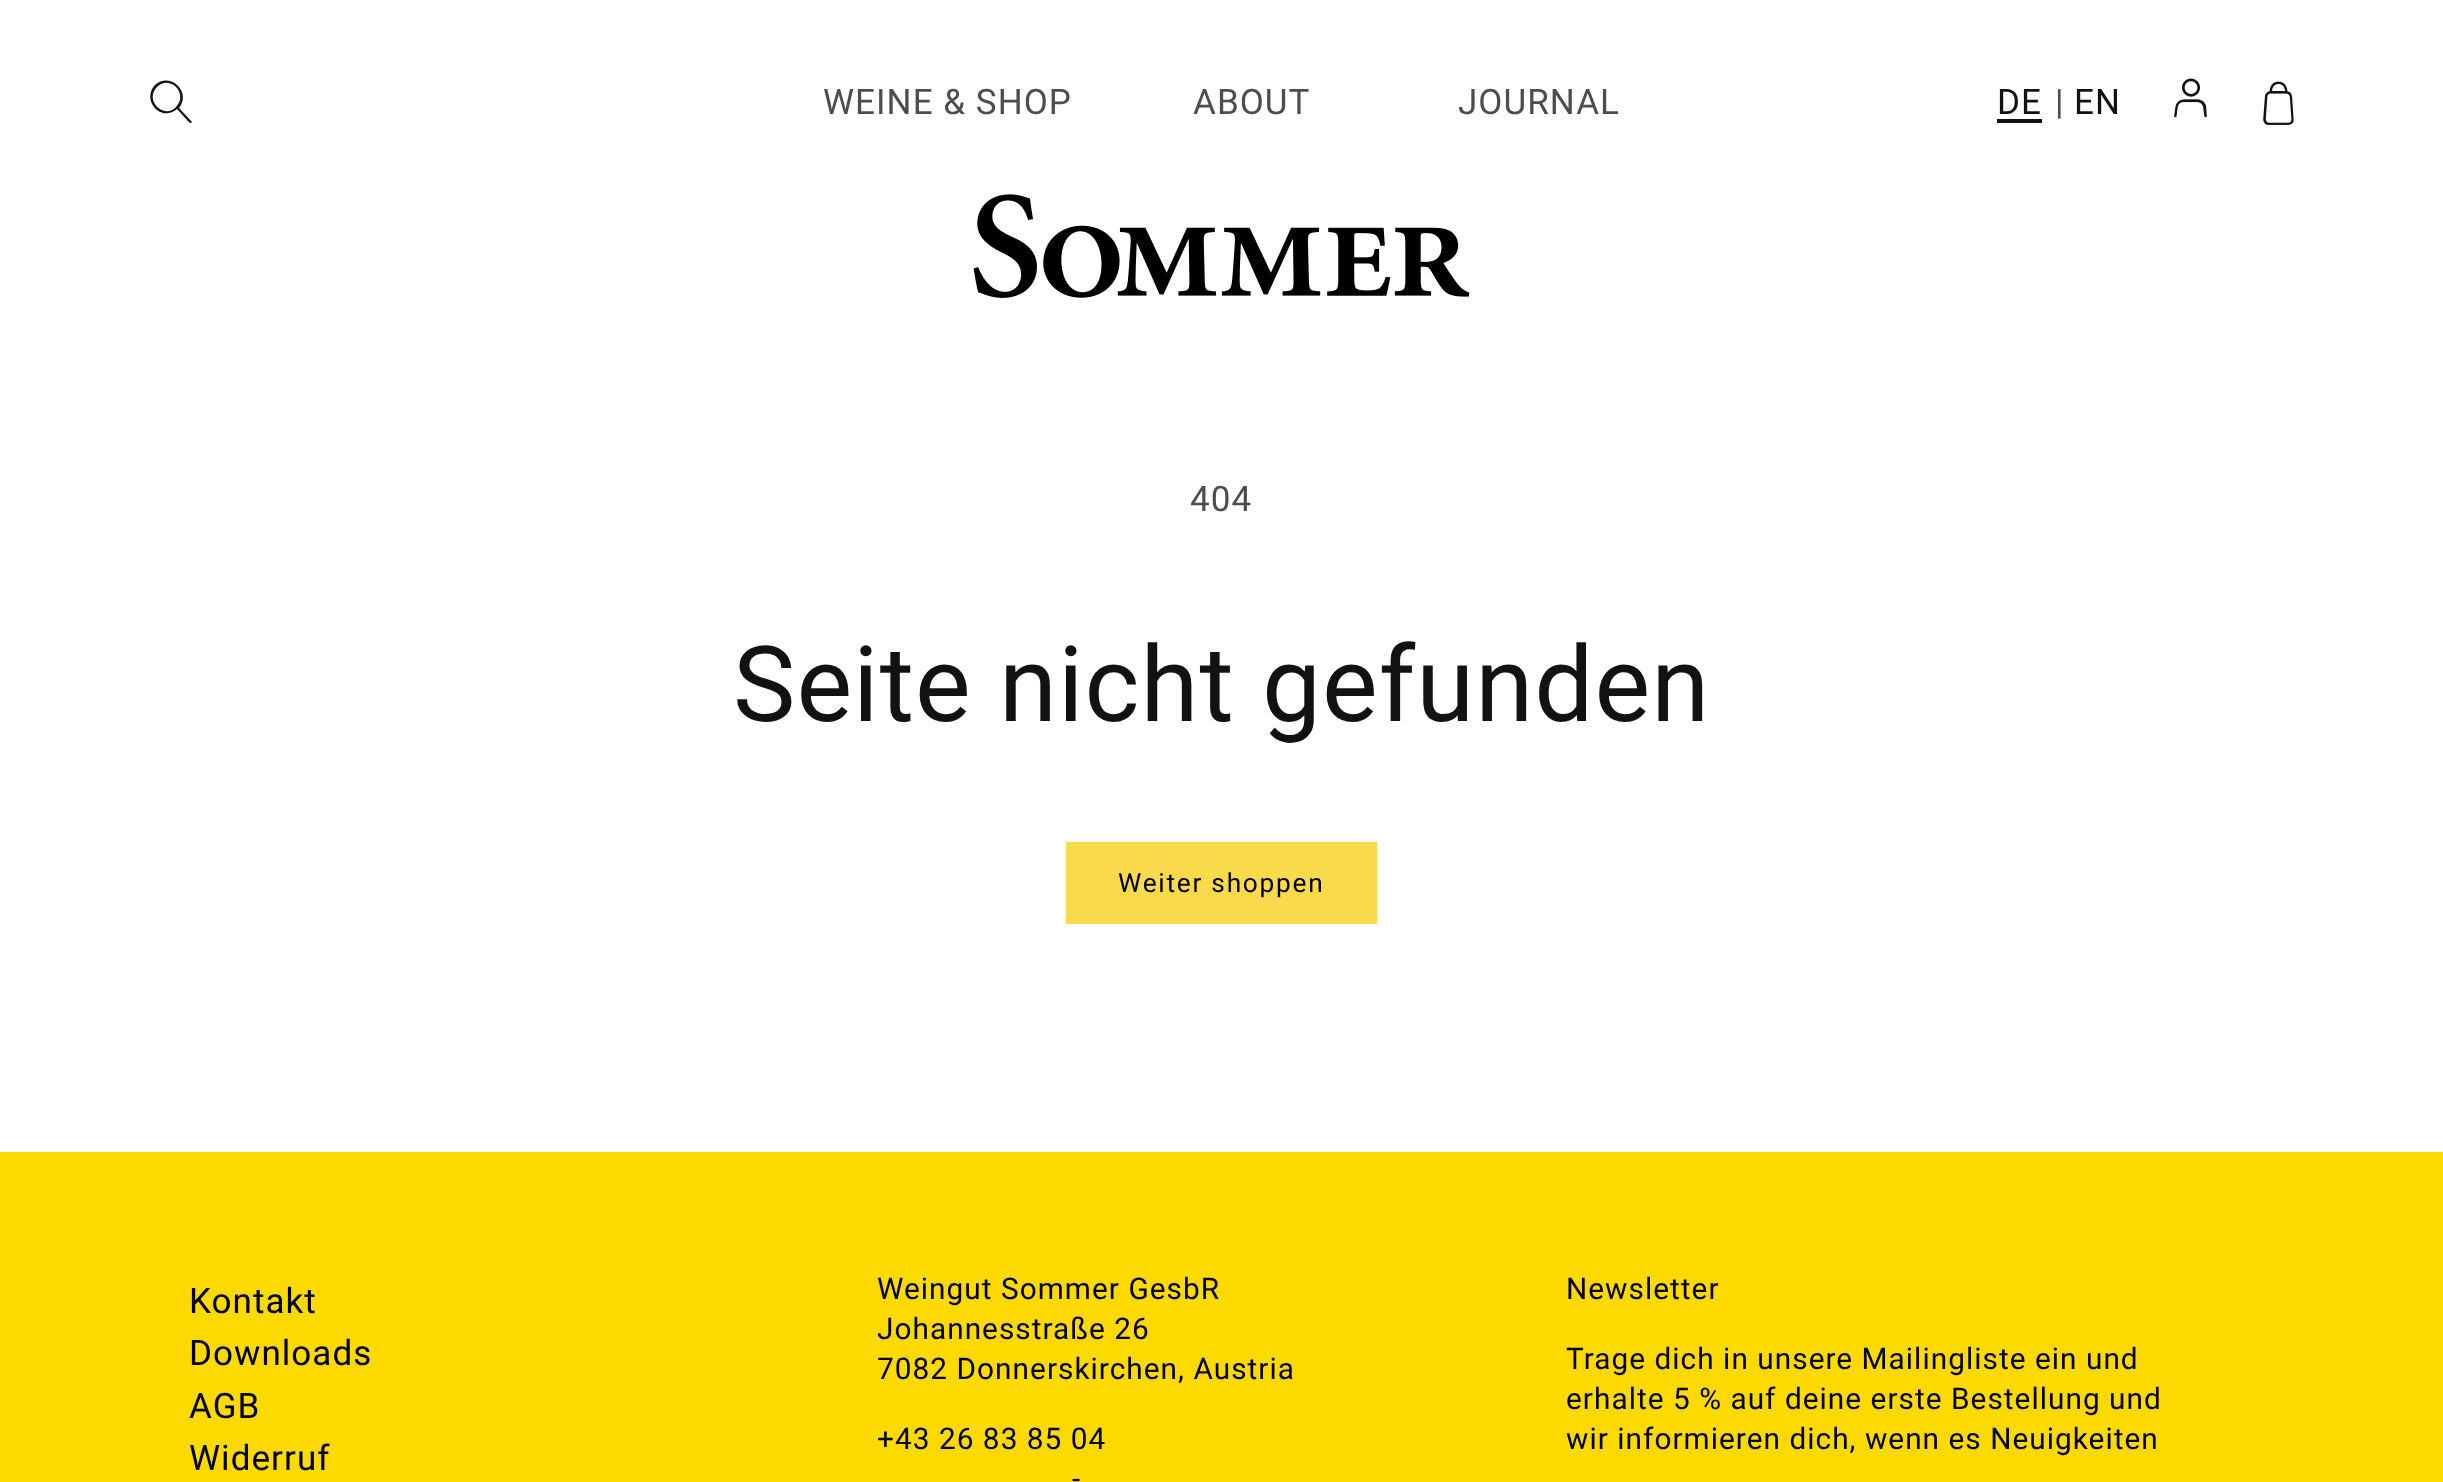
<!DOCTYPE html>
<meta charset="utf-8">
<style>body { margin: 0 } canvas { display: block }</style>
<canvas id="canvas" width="2443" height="1482"></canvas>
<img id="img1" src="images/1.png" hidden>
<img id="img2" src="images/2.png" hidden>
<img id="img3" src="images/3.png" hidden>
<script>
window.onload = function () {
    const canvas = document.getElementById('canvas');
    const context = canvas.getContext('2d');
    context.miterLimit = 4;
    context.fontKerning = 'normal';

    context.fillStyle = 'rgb(255, 255, 255)';
    context.fillRect(0, 0, 2443, 1482);
    context.fillStyle = 'rgb(18, 18, 18)';
    context.beginPath();
    context.moveTo(176, 107);
    context.bezierCurveTo(164, 120, 144, 100, 157, 87);
    context.bezierCurveTo(170, 74, 189, 94, 176, 107);
    context.closePath();
    context.moveTo(177, 109);
    context.bezierCurveTo(161, 123, 141, 100, 155, 85);
    context.bezierCurveTo(170, 71, 192, 92, 179, 108);
    context.lineTo(192, 122);
    context.lineTo(191, 123);
    context.bezierCurveTo(190, 124, 179, 111, 177, 109);
    context.closePath();
    context.fill('evenodd');
    context.fillRect(1997, 119, 45, 4);
    context.drawImage(document.getElementById('img1'), 2174, 78, 33, 40);
    context.drawImage(document.getElementById('img2'), 2263, 81, 31, 44);
    context.drawImage(document.getElementById('img3'), 973, 194, 497, 104);
    context.fillStyle = 'rgb(248, 218, 74)';
    context.fillRect(1066, 842, 311, 82);
    context.fillStyle = 'rgb(252, 217, 0)';
    context.fillRect(0, 1152, 2443, 330);
    context.letterSpacing = '1.05px';
    context.font = '35px Roboto';
    context.fillStyle = 'rgb(77, 77, 77)';
    context.fillText('WEINE & SHOP', 823, 114);
    context.fillText('ABOUT', 1193, 114);
    context.fillText('JOURNAL', 1458, 114);
    context.fillStyle = 'rgb(18, 18, 18)';
    context.fillText('DE', 1997, 114);
    context.fillStyle = 'rgb(77, 77, 77)';
    context.fillText('|', 2055, 114);
    context.fillStyle = 'rgb(18, 18, 18)';
    context.fillText('EN', 2074, 114);
    context.fillStyle = 'rgb(77, 77, 77)';
    context.fillText('404', 1190, 511);
    context.font = '105px Roboto';
    context.fillStyle = 'rgb(18, 18, 18)';
    context.fillText('Seite nicht gefunden', 733, 721);
    context.letterSpacing = '1.75px';
    context.font = '26.25px Roboto';
    context.fillStyle = 'rgb(0, 0, 0)';
    context.fillText('Weiter shoppen', 1118, 892);
    context.letterSpacing = '1.05px';
    context.font = '35px Roboto';
    context.fillText('Kontakt', 189, 1313);
    context.fillText('Downloads', 189, 1365);
    context.fillText('AGB', 189, 1418);
    context.fillText('Widerruf', 189, 1470);
    context.font = '29.75px Roboto';
    context.fillText('Weingut Sommer GesbR', 877, 1299);
    context.fillText('Johannesstraße 26', 877, 1339);
    context.fillText('7082 Donnerskirchen, Austria', 877, 1379);
    context.fillText('+43 26 83 85 04', 877, 1449);
    context.fillText('-', 1072, 1489);
    context.fillText('Newsletter', 1566, 1299);
    context.fillText('Trage dich in unsere Mailingliste ein und', 1566, 1369);
    context.fillText('erhalte 5 % auf deine erste Bestellung und', 1566, 1409);
    context.fillText('wir informieren dich, wenn es Neuigkeiten', 1566, 1449);
};
</script>
